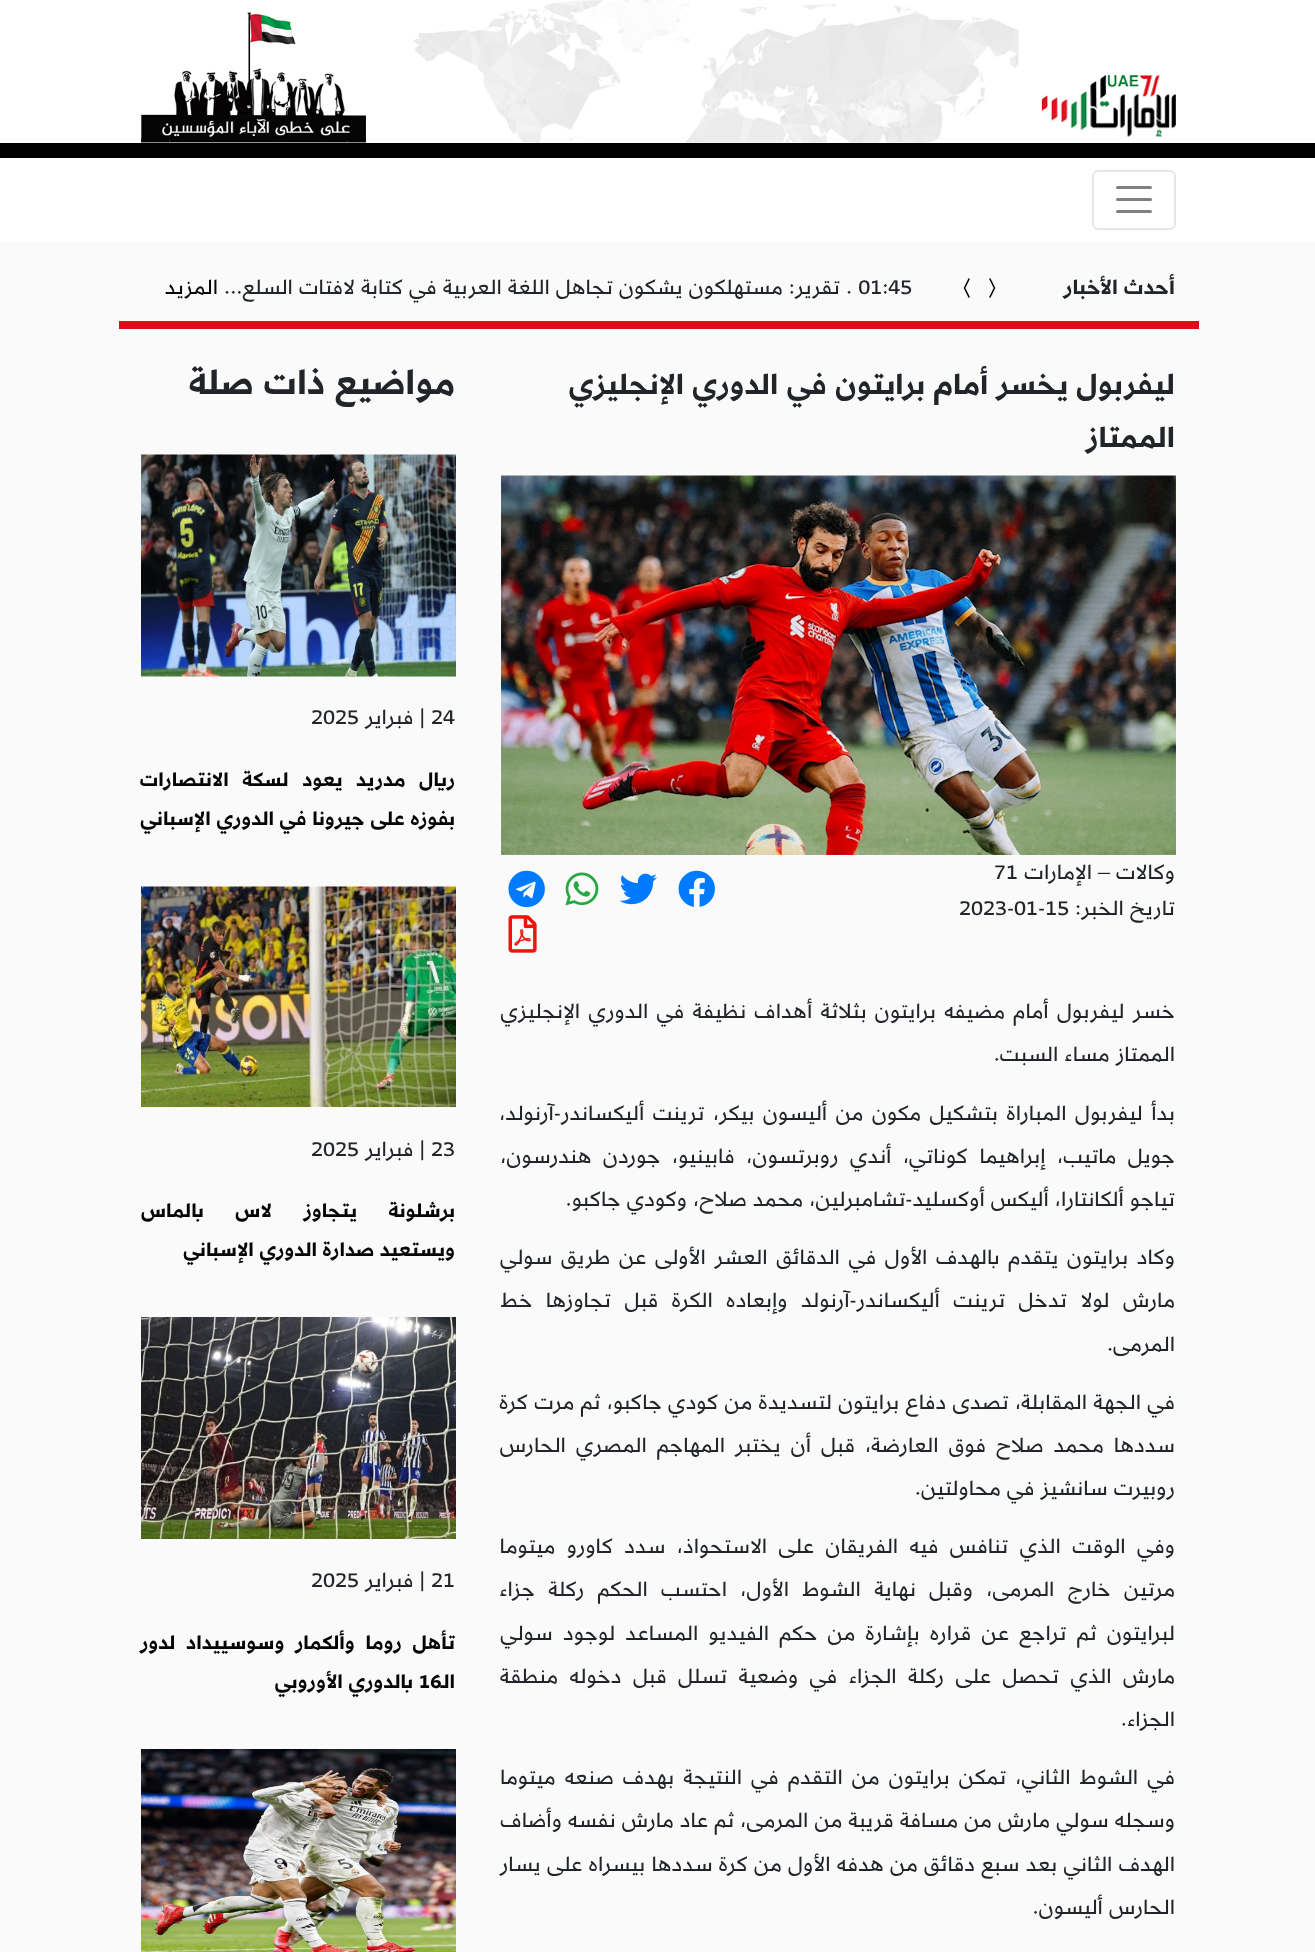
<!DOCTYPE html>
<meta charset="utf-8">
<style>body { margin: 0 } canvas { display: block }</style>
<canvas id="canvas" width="1315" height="1952"></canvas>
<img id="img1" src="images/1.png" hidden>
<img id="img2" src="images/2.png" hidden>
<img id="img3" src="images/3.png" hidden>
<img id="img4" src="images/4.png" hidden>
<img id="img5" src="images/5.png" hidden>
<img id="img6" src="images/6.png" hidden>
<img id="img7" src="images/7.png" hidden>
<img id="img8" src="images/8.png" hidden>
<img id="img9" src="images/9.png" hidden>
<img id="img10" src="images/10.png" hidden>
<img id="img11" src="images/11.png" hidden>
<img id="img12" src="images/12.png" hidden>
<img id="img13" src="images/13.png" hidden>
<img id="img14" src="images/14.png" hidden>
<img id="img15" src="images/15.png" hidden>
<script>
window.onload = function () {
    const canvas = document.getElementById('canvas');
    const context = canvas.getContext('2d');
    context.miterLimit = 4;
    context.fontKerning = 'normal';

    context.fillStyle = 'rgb(250, 250, 250)';
    context.fillRect(0, 0, 1315, 1952);
    context.fillStyle = 'rgb(255, 255, 255)';
    context.fillRect(0, 0, 1315, 242);
    context.fillStyle = 'rgb(0, 0, 0)';
    context.fillRect(0, 143, 1315, 15);
    context.drawImage(document.getElementById('img1'), 1041, 75, 135, 62);
    context.drawImage(document.getElementById('img2'), 413, 0, 606, 143);
    context.drawImage(document.getElementById('img3'), 141, 12, 225, 131);
    context.beginPath();
    context.roundRect(1093, 171, 82, 58, 5);
    context.strokeStyle = 'rgb(230, 230, 230)';
    context.lineWidth = 2;
    context.stroke();
    context.beginPath();
    context.moveTo(1117.5, 187.5);
    context.lineTo(1150.5, 187.5);
    context.moveTo(1117.5, 199.5);
    context.lineTo(1150.5, 199.5);
    context.moveTo(1117.5, 211.5);
    context.lineTo(1150.5, 211.5);
    context.strokeStyle = 'rgb(128, 128, 128)';
    context.lineWidth = 3;
    context.lineCap = 'round';
    context.stroke();
    context.fillStyle = 'rgb(220, 14, 26)';
    context.fillRect(119, 321, 1080, 8);
    context.drawImage(document.getElementById('img4'), 989, 278, 7, 20);
    context.drawImage(document.getElementById('img5'), 963, 278, 7, 20);
    context.drawImage(document.getElementById('img6'), 501, 475, 675, 380);
    context.drawImage(document.getElementById('img7'), 678, 870, 37, 37);
    context.drawImage(document.getElementById('img8'), 619, 873, 38, 32);
    context.drawImage(document.getElementById('img9'), 565, 872, 34, 34);
    context.drawImage(document.getElementById('img10'), 508, 870, 37, 38);
    context.drawImage(document.getElementById('img11'), 508, 915, 29, 38);
    context.drawImage(document.getElementById('img12'), 141, 454, 315, 223);
    context.drawImage(document.getElementById('img13'), 141, 886, 315, 221);
    context.drawImage(document.getElementById('img14'), 141, 1317, 315, 222);
    context.drawImage(document.getElementById('img15'), 141, 1749, 315, 203);
    context.direction = 'rtl';
    context.font = 'bold 24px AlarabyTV';
    context.fillStyle = 'rgb(33, 37, 41)';
    context.fillText('أحدث الأخبار', 1175, 294);
    context.direction = 'ltr';
    context.font = '24px AlarabyTV';
    context.fillText('. 01:45', 846, 294);
    context.direction = 'rtl';
    context.fillText('تقرير: مستهلكون يشكون تجاهل اللغة العربية في كتابة لافتات السلع...', 840, 294);
    context.fillStyle = 'rgb(5, 5, 5)';
    context.fillText('المزيد', 218, 294);
    context.font = 'bold 33.6px AlarabyTV';
    context.fillStyle = 'rgb(33, 37, 41)';
    context.fillText('ليفربول يخسر أمام برايتون في الدوري الإنجليزي', 1175, 394);
    context.fillText('الممتاز', 1175, 447);
    context.font = '24px AlarabyTV';
    context.fillText('وكالات', 1175, 879);
    context.font = '24px Liberation Serif';
    context.fillText('–', 1110, 879);
    context.font = '24px AlarabyTV';
    context.fillText('الإمارات', 1092, 879);
    context.direction = 'ltr';
    context.fillText('71', 994, 879);
    context.direction = 'rtl';
    context.fillText('تاريخ الخبر:', 1175, 915);
    context.direction = 'ltr';
    context.fillText('2023-01-15', 959, 915);
    context.wordSpacing = '2.25px';
    context.direction = 'rtl';
    context.fillText('خسر ليفربول أمام مضيفه برايتون بثلاثة أهداف نظيفة في الدوري الإنجليزي', 1175, 1018);
    context.wordSpacing = '0px';
    context.fillText('الممتاز مساء السبت.', 1175, 1061);
    context.wordSpacing = '2.5px';
    context.fillText('بدأ ليفربول المباراة بتشكيل مكون من أليسون بيكر، ترينت أليكساندر-آرنولد،', 1175, 1120);
    context.wordSpacing = '5.5px';
    context.fillText('جويل ماتيب، إبراهيما كوناتي، أندي روبرتسون، فابينيو، جوردن هندرسون،', 1175, 1163);
    context.wordSpacing = '0px';
    context.fillText('تياجو ألكانتارا، أليكس أوكسليد-تشامبرلين، محمد صلاح، وكودي جاكبو.', 1175, 1206);
    context.wordSpacing = '2.6px';
    context.fillText('وكاد برايتون يتقدم بالهدف الأول في الدقائق العشر الأولى عن طريق سولي', 1175, 1264);
    context.wordSpacing = '7.5px';
    context.fillText('مارش لولا تدخل ترينت أليكساندر-آرنولد وإبعاده الكرة قبل تجاوزها خط', 1175, 1307);
    context.wordSpacing = '0px';
    context.fillText('المرمى.', 1175, 1351);
    context.wordSpacing = '0.25px';
    context.fillText('في الجهة المقابلة، تصدى دفاع برايتون لتسديدة من كودي جاكبو، ثم مرت كرة', 1175, 1409);
    context.wordSpacing = '4px';
    context.fillText('سددها محمد صلاح فوق العارضة، قبل أن يختبر المهاجم المصري الحارس', 1175, 1452);
    context.wordSpacing = '0px';
    context.fillText('روبيرت سانشيز في محاولتين.', 1175, 1495);
    context.wordSpacing = '5.4px';
    context.fillText('وفي الوقت الذي تنافس فيه الفريقان على الاستحواذ، سدد كاورو ميتوما', 1175, 1553);
    context.wordSpacing = '7.25px';
    context.fillText('مرتين خارج المرمى، وقبل نهاية الشوط الأول، احتسب الحكم ركلة جزاء', 1175, 1596);
    context.wordSpacing = '4.25px';
    context.fillText('لبرايتون ثم تراجع عن قراره بإشارة من حكم الفيديو المساعد لوجود سولي', 1175, 1640);
    context.wordSpacing = '5.4px';
    context.fillText('مارش الذي تحصل على ركلة الجزاء في وضعية تسلل قبل دخوله منطقة', 1175, 1683);
    context.wordSpacing = '0px';
    context.fillText('الجزاء.', 1175, 1726);
    context.wordSpacing = '3.1px';
    context.fillText('في الشوط الثاني، تمكن برايتون من التقدم في النتيجة بهدف صنعه ميتوما', 1175, 1784);
    context.wordSpacing = '0.1px';
    context.fillText('وسجله سولي مارش من مسافة قريبة من المرمى، ثم عاد مارش نفسه وأضاف', 1175, 1827);
    context.wordSpacing = '0.25px';
    context.fillText('الهدف الثاني بعد سبع دقائق من هدفه الأول من كرة سددها بيسراه على يسار', 1175, 1871);
    context.wordSpacing = '0px';
    context.fillText('الحارس أليسون.', 1175, 1914);
    context.font = 'bold 40.5px AlarabyTV';
    context.fillText('مواضيع ذات صلة', 455, 394);
    context.direction = 'ltr';
    context.font = '24px AlarabyTV';
    context.fillText('24', 431, 724);
    context.direction = 'rtl';
    context.fillText('| فبراير', 425, 724);
    context.direction = 'ltr';
    context.fillText('2025', 311, 724);
    context.wordSpacing = '8px';
    context.direction = 'rtl';
    context.font = 'bold 22.5px AlarabyTV';
    context.fillStyle = 'rgb(5, 5, 5)';
    context.fillText('ريال مدريد يعود لسكة الانتصارات', 455, 786);
    context.wordSpacing = '0px';
    context.fillText('بفوزه على جيرونا في الدوري الإسباني', 455, 825);
    context.direction = 'ltr';
    context.font = '24px AlarabyTV';
    context.fillStyle = 'rgb(33, 37, 41)';
    context.fillText('23', 431, 1156);
    context.direction = 'rtl';
    context.fillText('| فبراير', 425, 1156);
    context.direction = 'ltr';
    context.fillText('2025', 311, 1156);
    context.wordSpacing = '26px';
    context.direction = 'rtl';
    context.font = 'bold 22.5px AlarabyTV';
    context.fillStyle = 'rgb(5, 5, 5)';
    context.fillText('برشلونة يتجاوز لاس بالماس', 455, 1217);
    context.wordSpacing = '0px';
    context.fillText('ويستعيد صدارة الدوري الإسباني', 455, 1256);
    context.direction = 'ltr';
    context.font = '24px AlarabyTV';
    context.fillStyle = 'rgb(33, 37, 41)';
    context.fillText('21', 431, 1587);
    context.direction = 'rtl';
    context.fillText('| فبراير', 425, 1587);
    context.direction = 'ltr';
    context.fillText('2025', 311, 1587);
    context.wordSpacing = '5px';
    context.direction = 'rtl';
    context.font = 'bold 22.5px AlarabyTV';
    context.fillStyle = 'rgb(5, 5, 5)';
    context.fillText('تأهل روما وألكمار وسوسييداد لدور', 455, 1649);
    context.wordSpacing = '0px';
    context.direction = 'ltr';
    context.fillText('16', 419, 1688);
    context.direction = 'rtl';
    context.fillText('الـ', 455, 1688);
    context.fillText('بالدوري الأوروبي', 413, 1688);
};
</script>
